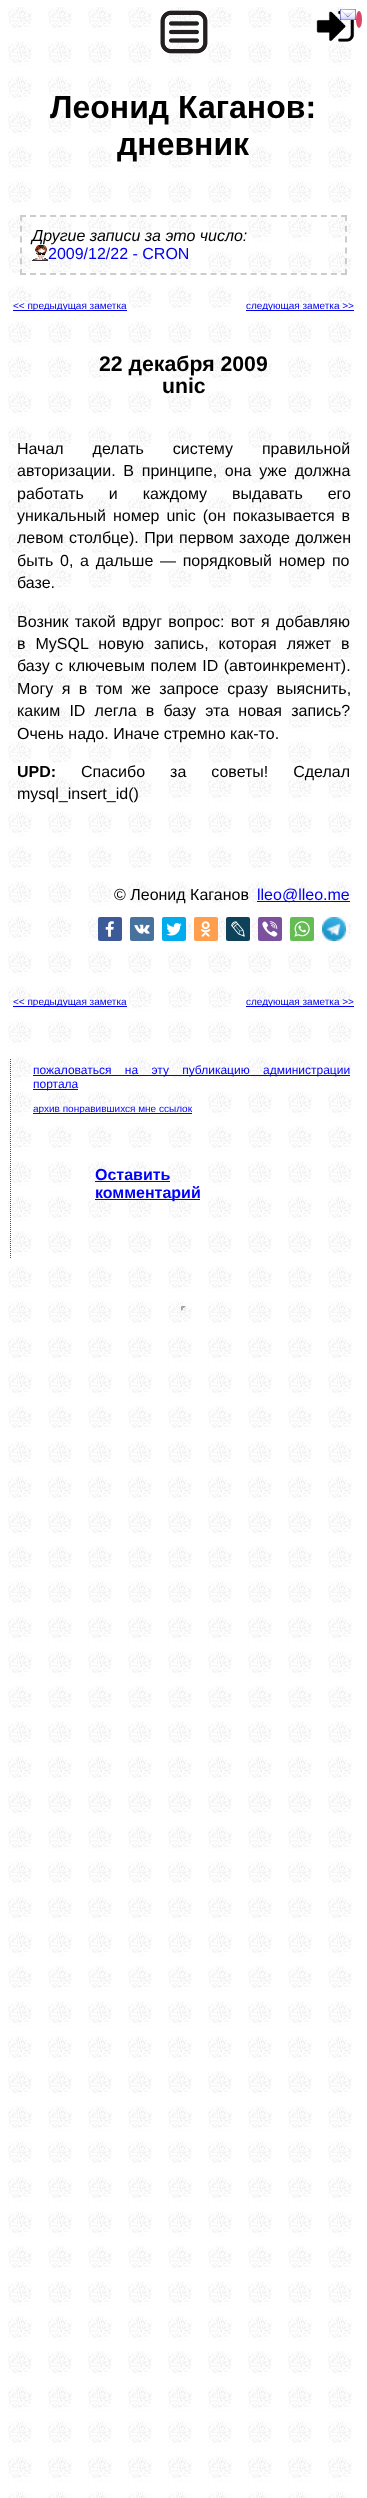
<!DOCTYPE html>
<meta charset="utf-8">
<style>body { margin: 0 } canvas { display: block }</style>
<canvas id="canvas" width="367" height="2498"></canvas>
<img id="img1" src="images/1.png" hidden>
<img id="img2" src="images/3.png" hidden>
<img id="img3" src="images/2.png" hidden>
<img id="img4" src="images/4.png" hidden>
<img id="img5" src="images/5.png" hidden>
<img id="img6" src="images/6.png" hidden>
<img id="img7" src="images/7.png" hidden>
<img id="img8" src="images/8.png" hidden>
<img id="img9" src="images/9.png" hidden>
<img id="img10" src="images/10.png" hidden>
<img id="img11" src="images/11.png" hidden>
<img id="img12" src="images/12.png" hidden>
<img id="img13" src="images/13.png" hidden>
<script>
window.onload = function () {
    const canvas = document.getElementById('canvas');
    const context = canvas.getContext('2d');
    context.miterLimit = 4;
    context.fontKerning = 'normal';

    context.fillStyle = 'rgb(255, 255, 255)';
    context.fillRect(0, 0, 367, 2498);
    context.drawImage(document.getElementById('img1'), 8, 7, 344, 2491);
    context.drawImage(document.getElementById('img2'), 316, 10, 39, 32);
    context.drawImage(document.getElementById('img3'), 340, 9, 16, 11);
    context.fillStyle = 'rgb(220, 70, 102)';
    context.beginPath();
    context.ellipse(359, 19.5, 3, 8.5, 0, 0, 2 * Math.PI);
    context.fill();
    context.drawImage(document.getElementById('img4'), 160, 10, 48, 44);
    context.beginPath();
    context.moveTo(20, 216);
    context.lineTo(347, 216);
    context.strokeStyle = 'rgb(204, 204, 204)';
    context.lineWidth = 2;
    context.setLineDash([6, 4.03]);
    context.stroke();
    context.beginPath();
    context.moveTo(346, 215);
    context.lineTo(346, 275);
    context.setLineDash([6, 4.8]);
    context.stroke();
    context.beginPath();
    context.moveTo(20, 274);
    context.lineTo(347, 274);
    context.setLineDash([6, 4.03]);
    context.stroke();
    context.beginPath();
    context.moveTo(21, 215);
    context.lineTo(21, 275);
    context.setLineDash([6, 4.8]);
    context.stroke();
    context.drawImage(document.getElementById('img5'), 32, 245, 16, 16);
    context.fillStyle = 'rgb(0, 0, 238)';
    context.fillRect(13, 310, 114, 1);
    context.fillRect(246, 310, 108, 1);
    context.fillRect(257, 901, 93, 1);
    context.fillStyle = 'rgb(60, 90, 152)';
    context.beginPath();
    context.roundRect(98, 917, 24, 24, 2);
    context.fill();
    context.drawImage(document.getElementById('img6'), 105, 921, 9, 16);
    context.fillStyle = 'rgb(72, 114, 158)';
    context.beginPath();
    context.roundRect(130, 917, 24, 24, 2);
    context.fill();
    context.drawImage(document.getElementById('img7'), 134, 924, 16, 10);
    context.fillStyle = 'rgb(0, 172, 237)';
    context.beginPath();
    context.roundRect(162, 917, 24, 24, 2);
    context.fill();
    context.drawImage(document.getElementById('img8'), 166, 923, 16, 13);
    context.fillStyle = 'rgb(255, 159, 77)';
    context.beginPath();
    context.roundRect(194, 917, 24, 24, 2);
    context.fill();
    context.drawImage(document.getElementById('img9'), 200, 921, 11, 16);
    context.fillStyle = 'rgb(13, 66, 90)';
    context.beginPath();
    context.roundRect(226, 917, 24, 24, 2);
    context.fill();
    context.drawImage(document.getElementById('img10'), 231, 921, 14, 16);
    context.fillStyle = 'rgb(123, 81, 157)';
    context.beginPath();
    context.roundRect(258, 917, 24, 24, 2);
    context.fill();
    context.drawImage(document.getElementById('img11'), 262, 921, 16, 16);
    context.fillStyle = 'rgb(101, 188, 84)';
    context.beginPath();
    context.roundRect(290, 917, 24, 24, 2);
    context.fill();
    context.drawImage(document.getElementById('img12'), 294, 921, 16, 16);
    context.drawImage(document.getElementById('img13'), 322, 917, 24, 24);
    context.fillStyle = 'rgb(0, 0, 238)';
    context.fillRect(13, 1006, 114, 1);
    context.fillRect(246, 1006, 108, 1);
    context.beginPath();
    context.moveTo(10.5, 1059);
    context.lineTo(10.5, 1259);
    context.strokeStyle = 'rgb(255, 0, 0)';
    context.lineWidth = 1;
    context.setLineDash([1, 1]);
    context.stroke();
    context.fillStyle = 'rgb(0, 0, 255)';
    context.fillRect(33, 1075, 317, 1);
    context.fillRect(33, 1089, 45, 1);
    context.fillRect(33, 1113, 159, 1);
    context.fillRect(95, 1181, 75, 1);
    context.fillRect(95, 1199, 105, 1);
    context.fillStyle = 'rgb(159, 159, 159)';
    context.beginPath();
    context.moveTo(181, 1306);
    context.lineTo(186, 1306);
    context.lineTo(184, 1308);
    context.lineTo(183, 1308);
    context.closePath();
    context.fill();
    context.fillStyle = 'rgb(238, 238, 238)';
    context.beginPath();
    context.moveTo(186, 1306);
    context.lineTo(186, 1311);
    context.lineTo(184, 1309);
    context.lineTo(184, 1308);
    context.closePath();
    context.fill();
    context.beginPath();
    context.moveTo(186, 1311);
    context.lineTo(181, 1311);
    context.lineTo(183, 1309);
    context.lineTo(184, 1309);
    context.closePath();
    context.fill();
    context.fillStyle = 'rgb(159, 159, 159)';
    context.beginPath();
    context.moveTo(181, 1311);
    context.lineTo(181, 1306);
    context.lineTo(183, 1308);
    context.lineTo(183, 1309);
    context.closePath();
    context.fill();
    context.font = 'bold 32px Liberation Sans';
    context.fillStyle = 'rgb(0, 0, 0)';
    context.fillText('Леонид Каганов:', 50, 118);
    context.fillText('дневник', 117, 155);
    context.font = 'italic 16px Liberation Sans';
    context.fillText('Другие записи за это число:', 32, 241);
    context.font = '16px Liberation Sans';
    context.fillStyle = 'rgb(0, 0, 238)';
    context.fillText('2009/12/22 - CRON', 48, 259);
    context.font = '10px Liberation Sans';
    context.fillText('<< предыдущая заметка', 13, 309);
    context.fillText('следующая заметка >>', 246, 309);
    context.font = 'bold 21.25px Liberation Sans';
    context.fillStyle = 'rgb(0, 0, 0)';
    context.fillText('22 декабря 2009', 99, 371);
    context.fillText('unic', 162, 393);
    context.wordSpacing = '24.5px';
    context.font = '16px Liberation Sans';
    context.fillText('Начал делать систему правильной', 17, 454);
    context.wordSpacing = '3.25px';
    context.fillText('авторизации. В принципе, она уже должна', 17, 476);
    context.wordSpacing = '20.5px';
    context.fillText('работать и каждому выдавать его', 17, 499);
    context.wordSpacing = '2.5px';
    context.fillText('уникальный номер unic (он показывается в', 17, 521);
    context.wordSpacing = '1px';
    context.fillText('левом столбце). При первом заходе должен', 17, 543);
    context.wordSpacing = '2.25px';
    context.fillText('быть 0, а дальше — порядковый номер по', 17, 566);
    context.wordSpacing = '0px';
    context.fillText('базе.', 17, 588);
    context.wordSpacing = '1.75px';
    context.fillText('Возник такой вдруг вопрос: вот я добавляю', 17, 627);
    context.wordSpacing = '5.5px';
    context.fillText('в MySQL новую запись, которая ляжет в', 17, 649);
    context.wordSpacing = '1px';
    context.fillText('базу с ключевым полем ID (автоинкремент).', 17, 671);
    context.wordSpacing = '4px';
    context.fillText('Могу я в том же запросе сразу выяснить,', 17, 694);
    context.wordSpacing = '4.75px';
    context.fillText('каким ID легла в базу эта новая запись?', 17, 716);
    context.wordSpacing = '0px';
    context.fillText('Очень надо. Иначе стремно как-то.', 17, 739);
    context.font = 'bold 16px Liberation Sans';
    context.fillText('UPD:', 17, 777);
    context.wordSpacing = '20.5px';
    context.font = '16px Liberation Sans';
    context.fillText('Спасибо за советы! Сделал', 81, 777);
    context.wordSpacing = '0px';
    context.fillText('mysql_insert_id()', 17, 799);
    context.fillText('© Леонид Каганов', 114, 900);
    context.fillStyle = 'rgb(0, 0, 238)';
    context.fillText('lleo@lleo.me', 257, 900);
    context.font = '10px Liberation Sans';
    context.fillText('<< предыдущая заметка', 13, 1005);
    context.fillText('следующая заметка >>', 246, 1005);
    context.wordSpacing = '10px';
    context.font = '12px Liberation Sans';
    context.fillStyle = 'rgb(0, 0, 255)';
    context.fillText('пожаловаться на эту публикацию администрации', 33, 1074);
    context.wordSpacing = '0px';
    context.fillText('портала', 33, 1088);
    context.font = '10px Liberation Sans';
    context.fillText('архив понравившихся мне ссылок', 33, 1112);
    context.font = 'bold 16px Liberation Sans';
    context.fillText('Оставить', 95, 1180);
    context.fillText('комментарий', 95, 1198);
};
</script>
